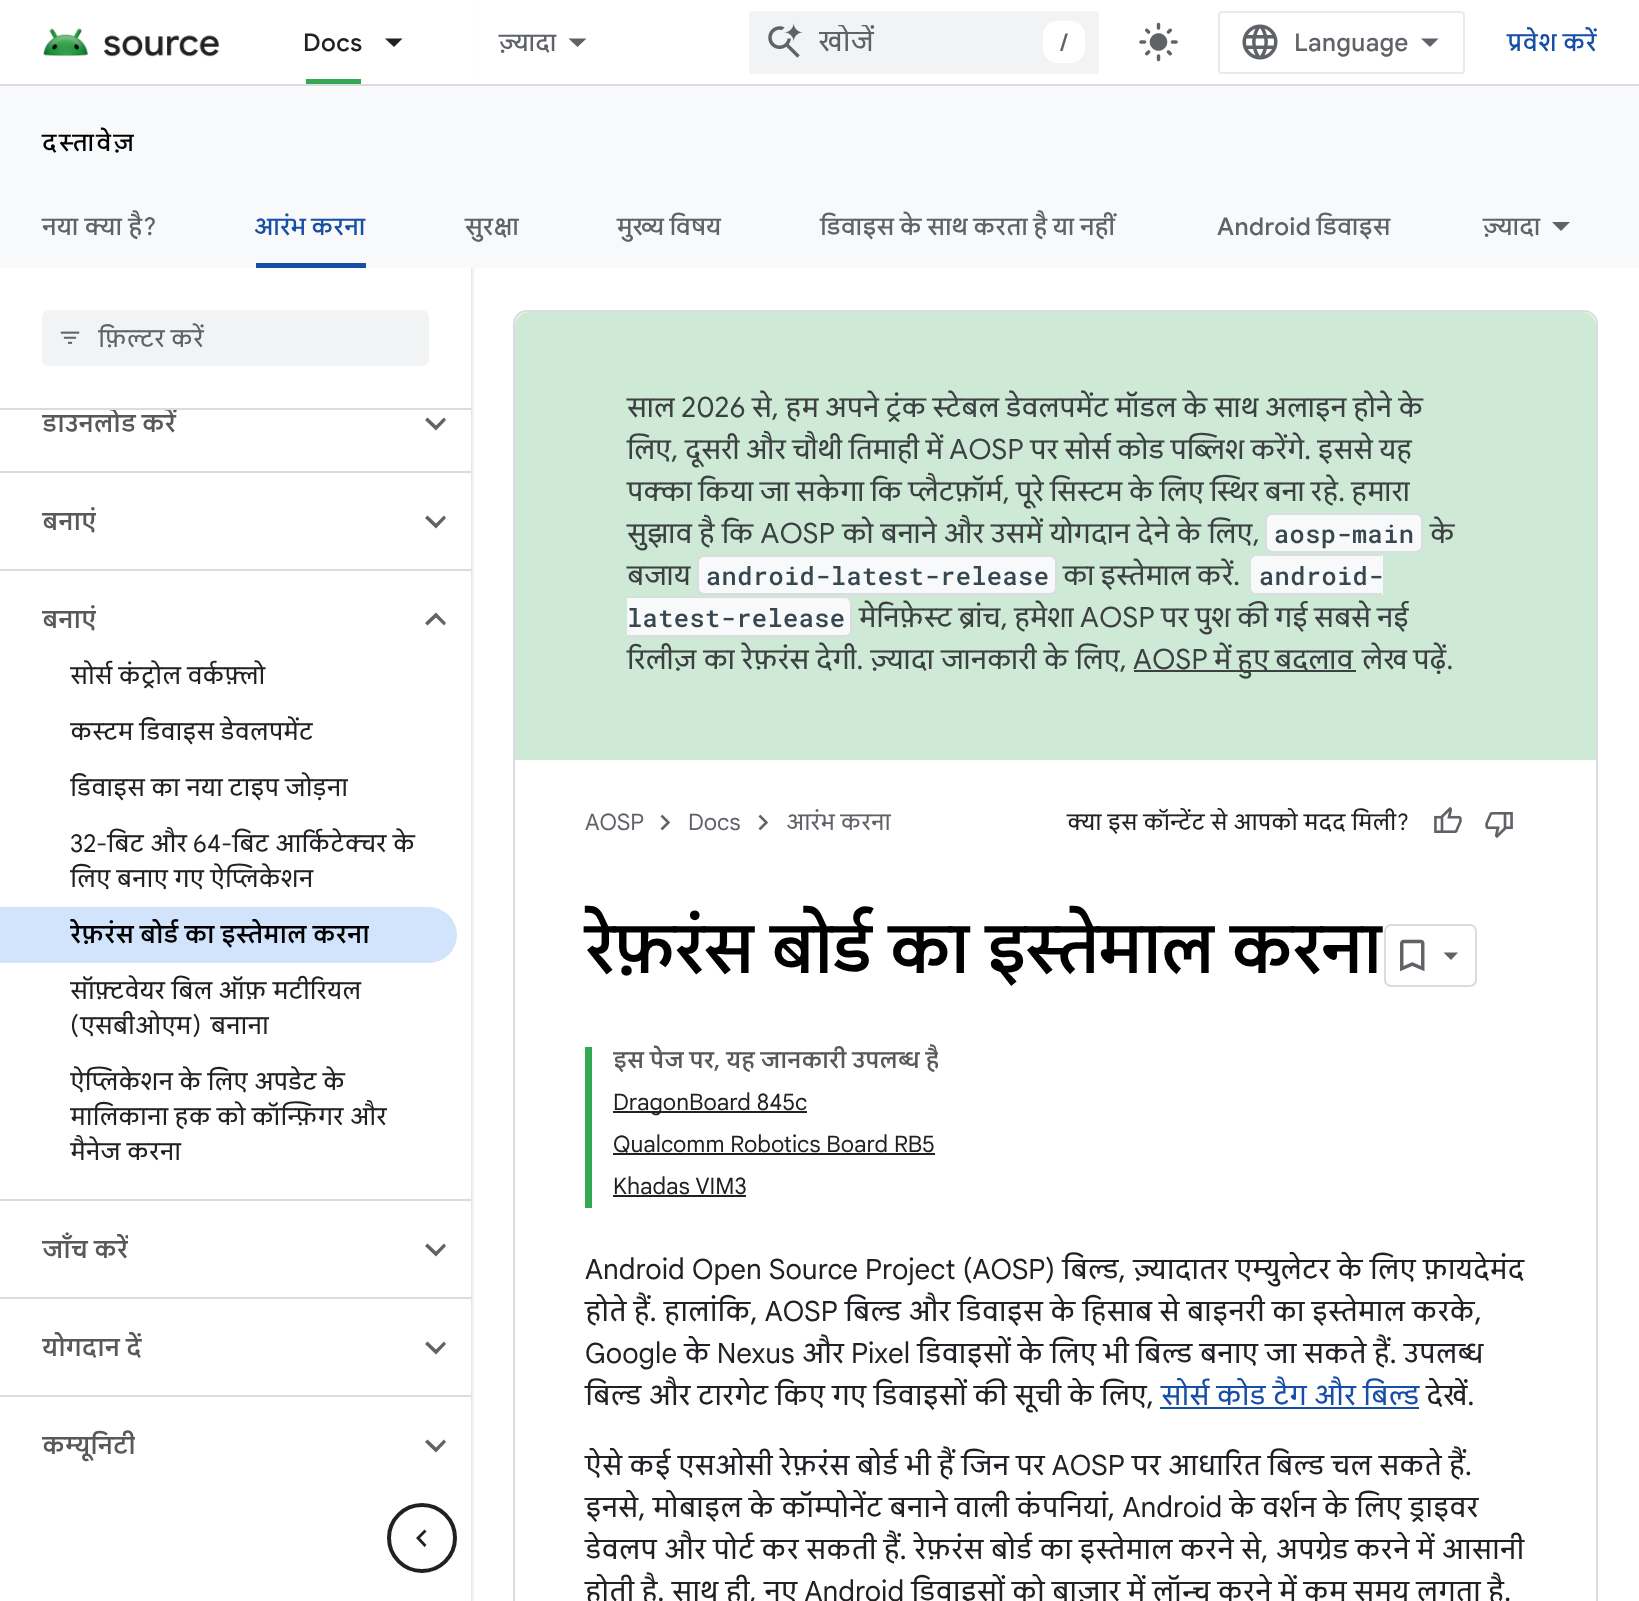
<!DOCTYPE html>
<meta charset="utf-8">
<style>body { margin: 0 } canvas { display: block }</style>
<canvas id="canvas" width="1639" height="1601"></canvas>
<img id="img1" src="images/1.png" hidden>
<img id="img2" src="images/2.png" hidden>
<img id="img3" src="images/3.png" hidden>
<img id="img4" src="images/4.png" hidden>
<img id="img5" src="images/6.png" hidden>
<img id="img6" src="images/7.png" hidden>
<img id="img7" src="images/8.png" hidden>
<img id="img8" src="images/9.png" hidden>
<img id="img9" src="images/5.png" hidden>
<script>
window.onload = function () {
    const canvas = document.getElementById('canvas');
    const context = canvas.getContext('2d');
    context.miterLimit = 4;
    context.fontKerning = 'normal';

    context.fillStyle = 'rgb(255, 255, 255)';
    context.fillRect(0, 0, 1639, 1601);
    context.fillStyle = 'rgb(189, 193, 198)';
    context.filter = 'blur(2px)';
    context.beginPath();
    context.rect(0, 2, 471, 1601);
    context.fill();
    context.filter = 'none';
    context.fillStyle = 'rgb(255, 255, 255)';
    context.fillRect(0, 410, 471, 1191);
    context.fillRect(0, 0, 474, 84);
    context.fillStyle = 'rgb(218, 220, 224)';
    context.fillRect(0, 84, 1639, 2);
    context.drawImage(document.getElementById('img1'), 43, 28, 176, 29);
    context.fillStyle = 'rgb(52, 168, 83)';
    context.fillRect(306, 79, 55, 5);
    context.fillStyle = 'rgb(32, 33, 36)';
    context.beginPath();
    context.moveTo(385, 38.5);
    context.lineTo(402.5, 38.5);
    context.lineTo(394, 47);
    context.closePath();
    context.fill();
    context.fillStyle = 'rgb(95, 99, 104)';
    context.beginPath();
    context.moveTo(568.5, 38.5);
    context.lineTo(586.5, 38.5);
    context.lineTo(577.5, 47);
    context.closePath();
    context.fill();
    context.fillStyle = 'rgb(241, 243, 244)';
    context.beginPath();
    context.roundRect(749, 11, 350, 63, 4);
    context.fill();
    context.drawImage(document.getElementById('img2'), 768, 23, 35, 35);
    context.fillStyle = 'rgb(255, 255, 255)';
    context.beginPath();
    context.roundRect(1043, 21, 42, 42, 14);
    context.fill();
    context.drawImage(document.getElementById('img3'), 1139, 22, 39, 40);
    context.beginPath();
    context.roundRect(1219, 12, 245, 61, 3);
    context.strokeStyle = 'rgb(232, 234, 237)';
    context.lineWidth = 2;
    context.stroke();
    context.drawImage(document.getElementById('img4'), 1242, 24, 36, 36);
    context.fillStyle = 'rgb(95, 99, 104)';
    context.beginPath();
    context.moveTo(1430, 47);
    context.lineTo(1421, 38.5);
    context.lineTo(1438.5, 38.5);
    context.closePath();
    context.fill();
    context.fillStyle = 'rgb(248, 249, 250)';
    context.fillRect(0, 86, 1639, 182);
    context.fillStyle = 'rgb(23, 78, 166)';
    context.fillRect(256, 263, 110, 5);
    context.fillStyle = 'rgb(95, 99, 104)';
    context.beginPath();
    context.moveTo(1552, 222);
    context.lineTo(1570, 222);
    context.lineTo(1561, 231);
    context.closePath();
    context.fill();
    context.fillStyle = 'rgb(218, 220, 224)';
    context.fillRect(0, 471, 471, 2);
    context.fillStyle = 'rgb(95, 99, 104)';
    context.beginPath();
    context.moveTo(436, 430.5);
    context.lineTo(446, 420);
    context.lineTo(444, 417.5);
    context.lineTo(436, 425.5);
    context.lineTo(427.5, 417.5);
    context.lineTo(425, 420);
    context.closePath();
    context.fill();
    context.fillStyle = 'rgb(218, 220, 224)';
    context.fillRect(0, 569, 471, 2);
    context.fillStyle = 'rgb(95, 99, 104)';
    context.beginPath();
    context.moveTo(436, 528.5);
    context.lineTo(446, 518);
    context.lineTo(444, 515.5);
    context.lineTo(436, 523.5);
    context.lineTo(427.5, 515.5);
    context.lineTo(425, 518);
    context.closePath();
    context.fill();
    context.fillStyle = 'rgb(218, 220, 224)';
    context.fillRect(0, 1199, 471, 2);
    context.fillStyle = 'rgb(95, 99, 104)';
    context.beginPath();
    context.moveTo(436, 612.5);
    context.lineTo(446, 623);
    context.lineTo(444, 625.5);
    context.lineTo(436, 617.5);
    context.lineTo(427.5, 625.5);
    context.lineTo(425, 623);
    context.closePath();
    context.fill();
    context.fillStyle = 'rgb(210, 227, 252)';
    context.beginPath();
    context.roundRect(0, 907, 457, 56, [0, 28, 28, 0]);
    context.fill();
    context.fillStyle = 'rgb(218, 220, 224)';
    context.fillRect(0, 1297, 471, 2);
    context.fillStyle = 'rgb(95, 99, 104)';
    context.beginPath();
    context.moveTo(436, 1256.5);
    context.lineTo(446, 1246);
    context.lineTo(444, 1243.5);
    context.lineTo(436, 1251.5);
    context.lineTo(427.5, 1243.5);
    context.lineTo(425, 1246);
    context.closePath();
    context.fill();
    context.fillStyle = 'rgb(218, 220, 224)';
    context.fillRect(0, 1395, 471, 2);
    context.fillStyle = 'rgb(95, 99, 104)';
    context.beginPath();
    context.moveTo(436, 1354.5);
    context.lineTo(446, 1344);
    context.lineTo(444, 1341.5);
    context.lineTo(436, 1349.5);
    context.lineTo(427.5, 1341.5);
    context.lineTo(425, 1344);
    context.closePath();
    context.fill();
    context.beginPath();
    context.moveTo(436, 1452.5);
    context.lineTo(446, 1442);
    context.lineTo(444, 1439.5);
    context.lineTo(436, 1447.5);
    context.lineTo(427.5, 1439.5);
    context.lineTo(425, 1442);
    context.closePath();
    context.fill();
    context.beginPath();
    context.arc(422, 1538, 33, 0, 2 * Math.PI);
    context.strokeStyle = 'rgb(32, 33, 36)';
    context.lineWidth = 4;
    context.stroke();
    context.fillStyle = 'rgb(32, 33, 36)';
    context.beginPath();
    context.moveTo(426.5, 1531.5);
    context.lineTo(420, 1538);
    context.lineTo(426.5, 1545);
    context.lineTo(424.5, 1547);
    context.lineTo(416, 1538);
    context.lineTo(424.5, 1529.5);
    context.closePath();
    context.fill();
    context.beginPath();
    context.roundRect(514, 311, 1083, 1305, 13);
    context.strokeStyle = 'rgb(218, 220, 224)';
    context.lineWidth = 2;
    context.stroke();
    context.fillStyle = 'rgb(206, 234, 214)';
    context.beginPath();
    context.roundRect(515, 312, 1081, 448, [14, 14, 0, 0]);
    context.fill();
    context.fillStyle = 'rgb(248, 249, 250)';
    context.beginPath();
    context.roundRect(1266, 514, 156, 38, 6);
    context.fill();
    context.stroke();
    context.beginPath();
    context.roundRect(698, 556, 358, 38, 6);
    context.fill();
    context.stroke();
    context.beginPath();
    context.roundRect(1250, 555, 133, 40, [7, 0, 0, 7]);
    context.fill();
    context.fillStyle = 'rgb(218, 220, 224)';
    context.beginPath();
    context.moveTo(1256, 555);
    context.lineTo(1382, 555);
    context.lineTo(1382, 595);
    context.lineTo(1256, 595);
    context.bezierCurveTo(1253, 595, 1250, 592, 1250, 588);
    context.lineTo(1250, 562);
    context.bezierCurveTo(1250, 558, 1253, 555, 1256, 555);
    context.closePath();
    context.moveTo(1256, 556);
    context.lineTo(1382, 556);
    context.lineTo(1382, 593);
    context.lineTo(1256, 593);
    context.bezierCurveTo(1254, 593, 1251, 591, 1251, 588);
    context.lineTo(1251, 562);
    context.bezierCurveTo(1251, 559, 1254, 556, 1256, 556);
    context.closePath();
    context.fill('evenodd');
    context.fillStyle = 'rgb(248, 249, 250)';
    context.beginPath();
    context.roundRect(627, 597, 225, 40, [0, 7, 7, 0]);
    context.fill();
    context.fillStyle = 'rgb(218, 220, 224)';
    context.beginPath();
    context.moveTo(626, 597);
    context.lineTo(845, 597);
    context.bezierCurveTo(849, 597, 852, 600, 852, 604);
    context.lineTo(852, 630);
    context.bezierCurveTo(852, 634, 849, 637, 845, 637);
    context.lineTo(626, 637);
    context.closePath();
    context.moveTo(626, 598);
    context.lineTo(845, 598);
    context.bezierCurveTo(848, 598, 850, 601, 850, 604);
    context.lineTo(850, 630);
    context.bezierCurveTo(850, 633, 848, 635, 845, 635);
    context.lineTo(626, 635);
    context.closePath();
    context.fill('evenodd');
    context.fillStyle = 'rgb(60, 64, 67)';
    context.fillRect(1134, 670, 222, 2);
    context.drawImage(document.getElementById('img5'), 660, 814, 11, 17);
    context.drawImage(document.getElementById('img5'), 758, 814, 11, 17);
    context.drawImage(document.getElementById('img6'), 1434, 807, 28, 26);
    context.drawImage(document.getElementById('img7'), 1485, 812, 28, 26);
    context.beginPath();
    context.roundRect(1385, 925, 91, 61, 6);
    context.stroke();
    context.drawImage(document.getElementById('img8'), 1400, 939, 25, 33);
    context.fillStyle = 'rgb(95, 99, 104)';
    context.beginPath();
    context.moveTo(1443.5, 952.5);
    context.lineTo(1458, 952.5);
    context.lineTo(1451, 960);
    context.closePath();
    context.fill();
    context.fillStyle = 'rgb(52, 168, 83)';
    context.fillRect(585, 1047, 7, 161);
    context.fillStyle = 'rgb(32, 33, 36)';
    context.fillRect(613, 1111, 194, 2);
    context.fillRect(613, 1153, 322, 2);
    context.fillRect(613, 1195, 133, 2);
    context.fillStyle = 'rgb(23, 78, 166)';
    context.fillRect(1160, 1407, 259, 2);
    context.letterSpacing = '0.45px';
    context.font = '500 24.5px Google Sans';
    context.fillStyle = 'rgb(32, 33, 36)';
    context.fillText('Docs', 303, 51);
    context.fillStyle = 'rgb(95, 99, 104)';
    context.fillText('ज़्यादा', 499, 51);
    context.save();
    context.beginPath();
    context.rect(819, 25, 266, 35);
    context.clip();
    context.letterSpacing = '0px';
    context.font = '28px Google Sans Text';
    context.fillText('खोजें', 818, 51);
    context.restore();
    context.letterSpacing = '0px';
    context.fillText('/', 1060, 51);
    context.font = '500 24.5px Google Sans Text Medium';
    context.fillText('Language', 1294, 51);
    context.letterSpacing = '0.45px';
    context.wordSpacing = '-1px';
    context.fillStyle = 'rgb(23, 78, 166)';
    context.fillText('प्रवेश करें', 1507, 51);
    context.letterSpacing = '2.6px';
    context.wordSpacing = '0px';
    context.font = '500 24.5px Google Sans';
    context.fillStyle = 'rgb(0, 0, 0)';
    context.fillText('दस्तावेज़', 42, 151);
    context.letterSpacing = '0.45px';
    context.fillStyle = 'rgb(95, 99, 104)';
    context.fillText('नया क्या है?', 42, 235);
    context.wordSpacing = '-1px';
    context.fillStyle = 'rgb(23, 78, 166)';
    context.fillText('आरंभ करना', 254, 235);
    context.wordSpacing = '0px';
    context.fillStyle = 'rgb(95, 99, 104)';
    context.fillText('सुरक्षा', 465, 235);
    context.wordSpacing = '-1px';
    context.fillText('मुख्य विषय', 617, 235);
    context.wordSpacing = '-0.75px';
    context.fillText('डिवाइस के साथ करता है या नहीं', 820, 235);
    context.wordSpacing = '-1px';
    context.fillText('Android डिवाइस', 1217, 235);
    context.wordSpacing = '0px';
    context.fillText('ज़्यादा', 1483, 235);
    context.save();
    context.beginPath();
    context.rect(42, 396, 135, 56);
    context.clip();
    context.letterSpacing = '0px';
    context.font = 'bold 24.5px Google Sans Text';
    context.fillStyle = 'rgb(89, 89, 89)';
    context.fillText('डाउनलोड करें', 42, 432);
    context.restore();
    context.fillStyle = 'rgb(255, 255, 255)';
    context.fillRect(0, 268, 471, 140);
    context.fillStyle = 'rgb(241, 243, 244)';
    context.beginPath();
    context.roundRect(42, 310, 387, 56, 7);
    context.fill();
    context.drawImage(document.getElementById('img9'), 60, 331, 20, 13);
    context.save();
    context.beginPath();
    context.rect(98, 322, 275, 32);
    context.clip();
    context.letterSpacing = '0px';
    context.font = '24.5px Google Sans Text';
    context.fillStyle = 'rgb(95, 99, 104)';
    context.fillText('फ़िल्टर करें', 98, 347);
    context.restore();
    context.fillStyle = 'rgb(218, 220, 224)';
    context.fillRect(0, 408, 471, 2);
    context.save();
    context.beginPath();
    context.rect(42, 494, 54, 56);
    context.clip();
    context.letterSpacing = '0px';
    context.font = 'bold 24.5px Google Sans Text';
    context.fillStyle = 'rgb(89, 89, 89)';
    context.fillText('बनाएं', 42, 530);
    context.restore();
    context.save();
    context.beginPath();
    context.rect(42, 592, 54, 56);
    context.clip();
    context.letterSpacing = '0px';
    context.font = 'bold 24.5px Google Sans Text';
    context.fillStyle = 'rgb(89, 89, 89)';
    context.fillText('बनाएं', 42, 628);
    context.restore();
    context.save();
    context.beginPath();
    context.rect(70, 648, 196, 532);
    context.clip();
    context.letterSpacing = '0px';
    context.font = '24.5px Google Sans Text';
    context.fillStyle = 'rgb(32, 33, 36)';
    context.fillText('सोर्स कंट्रोल वर्कफ़्लो', 70, 684);
    context.restore();
    context.save();
    context.beginPath();
    context.rect(70, 648, 243, 532);
    context.clip();
    context.letterSpacing = '0px';
    context.font = '24.5px Google Sans Text';
    context.fillStyle = 'rgb(32, 33, 36)';
    context.fillText('कस्टम डिवाइस डेवलपमेंट', 70, 740);
    context.restore();
    context.save();
    context.beginPath();
    context.rect(70, 648, 278, 532);
    context.clip();
    context.letterSpacing = '0px';
    context.font = '24.5px Google Sans Text';
    context.fillStyle = 'rgb(32, 33, 36)';
    context.fillText('डिवाइस का नया टाइप जोड़ना', 70, 796);
    context.restore();
    context.letterSpacing = '0px';
    context.font = '24.5px Google Sans Text';
    context.fillStyle = 'rgb(32, 33, 36)';
    context.fillText('32-बिट और 64-बिट आर्किटेक्चर के', 70, 852);
    context.save();
    context.beginPath();
    context.rect(70, 648, 373, 532);
    context.clip();
    context.fillText('लिए बनाए गए ऐप्लिकेशन', 70, 887);
    context.restore();
    context.save();
    context.beginPath();
    context.rect(70, 648, 299, 532);
    context.clip();
    context.font = 'bold 24.5px Google Sans Text';
    context.fillStyle = 'rgb(0, 0, 0)';
    context.fillText('रेफ़रंस बोर्ड का इस्तेमाल करना', 70, 943);
    context.restore();
    context.save();
    context.beginPath();
    context.rect(70, 648, 373, 532);
    context.clip();
    context.fillText('सॉफ़्टवेयर बिल ऑफ़ मटीरियल', 70, 999);
    context.restore();
    context.wordSpacing = '3px';
    context.fillText('(एसबीओएम) बनाना', 70, 1034);
    context.save();
    context.beginPath();
    context.rect(70, 648, 373, 532);
    context.clip();
    context.wordSpacing = '0px';
    context.fillText('ऐप्लिकेशन के लिए अपडेट के', 70, 1090);
    context.fillText('मालिकाना हक को कॉन्फ़िगर और', 70, 1125);
    context.fillText('मैनेज करना', 70, 1160);
    context.restore();
    context.save();
    context.beginPath();
    context.rect(42, 1222, 86, 56);
    context.clip();
    context.wordSpacing = '0px';
    context.font = 'bold 24.5px Google Sans Text';
    context.fillStyle = 'rgb(89, 89, 89)';
    context.fillText('जाँच करें', 42, 1258);
    context.restore();
    context.save();
    context.beginPath();
    context.rect(42, 1320, 100, 56);
    context.clip();
    context.wordSpacing = '0px';
    context.font = 'bold 24.5px Google Sans Text';
    context.fillStyle = 'rgb(89, 89, 89)';
    context.fillText('योगदान दें', 42, 1356);
    context.restore();
    context.save();
    context.beginPath();
    context.rect(42, 1418, 93, 56);
    context.clip();
    context.wordSpacing = '0px';
    context.font = 'bold 24.5px Google Sans Text';
    context.fillStyle = 'rgb(89, 89, 89)';
    context.fillText('कम्यूनिटी', 42, 1454);
    context.restore();
    context.letterSpacing = '0.45px';
    context.wordSpacing = '-0.6px';
    context.font = '28px Google Sans';
    context.fillStyle = 'rgb(60, 64, 67)';
    context.fillText('साल 2026 से, हम अपने ट्रंक स्टेबल डेवलपमेंट मॉडल के साथ अलाइन होने के', 627, 417);
    context.wordSpacing = '-0.75px';
    context.fillText('लिए, दूसरी और चौथी तिमाही में AOSP पर सोर्स कोड पब्लिश करेंगे. इससे यह', 627, 459);
    context.wordSpacing = '-0.9px';
    context.fillText('पक्का किया जा सकेगा कि प्लैटफ़ॉर्म, पूरे सिस्टम के लिए स्थिर बना रहे. हमारा', 627, 501);
    context.wordSpacing = '0px';
    context.fillText('सुझाव है कि AOSP को बनाने और उसमें योगदान देने के लिए,', 627, 543);
    context.font = '500 25.25px Roboto Mono';
    context.fillStyle = 'rgb(55, 71, 79)';
    context.fillText('aosp-main', 1274, 543);
    context.font = '28px Google Sans';
    context.fillStyle = 'rgb(60, 64, 67)';
    context.fillText('के', 1430, 543);
    context.fillText('बजाय', 627, 585);
    context.font = '500 25.25px Roboto Mono';
    context.fillStyle = 'rgb(55, 71, 79)';
    context.fillText('android-latest-release', 706, 585);
    context.wordSpacing = '-1px';
    context.font = '28px Google Sans';
    context.fillStyle = 'rgb(60, 64, 67)';
    context.fillText('का इस्तेमाल करें.', 1063, 585);
    context.wordSpacing = '0px';
    context.font = '500 25.25px Roboto Mono';
    context.fillStyle = 'rgb(55, 71, 79)';
    context.fillText('android-', 1259, 585);
    context.fillText('latest-release', 627, 627);
    context.wordSpacing = '-0.75px';
    context.font = '28px Google Sans';
    context.fillStyle = 'rgb(60, 64, 67)';
    context.fillText('मेनिफ़ेस्ट ब्रांच, हमेशा AOSP पर पुश की गई सबसे नई', 859, 627);
    context.wordSpacing = '0px';
    context.fillText('रिलीज़ का रेफ़रंस देगी. ज़्यादा जानकारी के लिए,', 627, 669);
    context.wordSpacing = '-1px';
    context.fillText('AOSP में हुए बदलाव', 1133, 669);
    context.fillText('लेख पढ़ें.', 1362, 669);
    context.letterSpacing = '0px';
    context.wordSpacing = '0px';
    context.font = '22.75px Google Sans Text';
    context.fillStyle = 'rgb(95, 99, 104)';
    context.fillText('AOSP', 585, 830);
    context.fillText('Docs', 688, 830);
    context.fillText('आरंभ करना', 786, 830);
    context.wordSpacing = '0.25px';
    context.fillStyle = 'rgb(32, 33, 36)';
    context.fillText('क्या इस कॉन्टेंट से आपको मदद मिली?', 1067, 830);
    context.letterSpacing = '-0.9px';
    context.wordSpacing = '2.5px';
    context.font = '600 70px Google Sans';
    context.fillStyle = 'rgb(0, 0, 0)';
    context.fillText('रेफ़रंस बोर्ड का इस्तेमाल करना', 585, 973);
    context.save();
    context.beginPath();
    context.rect(613, 0, 325, 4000);
    context.clip();
    context.letterSpacing = '0px';
    context.wordSpacing = '0px';
    context.font = 'bold 22.75px Google Sans Text';
    context.fillStyle = 'rgb(89, 89, 89)';
    context.fillText('इस पेज पर, यह जानकारी उपलब्ध है', 613, 1068);
    context.restore();
    context.letterSpacing = '0px';
    context.wordSpacing = '0px';
    context.font = '22.75px Google Sans Text';
    context.fillStyle = 'rgb(32, 33, 36)';
    context.fillText('DragonBoard 845c', 613, 1110);
    context.fillText('Qualcomm Robotics Board RB5', 613, 1152);
    context.fillText('Khadas VIM3', 613, 1194);
    context.font = '28px Google Sans Text';
    context.fillText('Android Open Source Project (AOSP) बिल्ड, ज़्यादातर एम्युलेटर के लिए फ़ायदेमंद', 585, 1279);
    context.fillText('होते हैं. हालांकि, AOSP बिल्ड और डिवाइस के हिसाब से बाइनरी का इस्तेमाल करके,', 585, 1321);
    context.fillText('Google के Nexus और Pixel डिवाइसों के लिए भी बिल्ड बनाए जा सकते हैं. उपलब्ध', 585, 1363);
    context.fillText('बिल्ड और टारगेट किए गए डिवाइसों की सूची के लिए,', 585, 1405);
    context.fillStyle = 'rgb(23, 78, 166)';
    context.fillText('सोर्स कोड टैग और बिल्ड', 1161, 1405);
    context.fillStyle = 'rgb(32, 33, 36)';
    context.fillText('देखें.', 1426, 1405);
    context.fillText('ऐसे कई एसओसी रेफ़रंस बोर्ड भी हैं जिन पर AOSP पर आधारित बिल्ड चल सकते हैं.', 585, 1475);
    context.fillText('इनसे, मोबाइल के कॉम्पोनेंट बनाने वाली कंपनियां, Android के वर्शन के लिए ड्राइवर', 585, 1517);
    context.fillText('डेवलप और पोर्ट कर सकती हैं. रेफ़रंस बोर्ड का इस्तेमाल करने से, अपग्रेड करने में आसानी', 585, 1559);
    context.fillText('होती है. साथ ही, नए Android डिवाइसों को बाज़ार में लॉन्च करने में कम समय लगता है.', 585, 1601);
};
</script>
